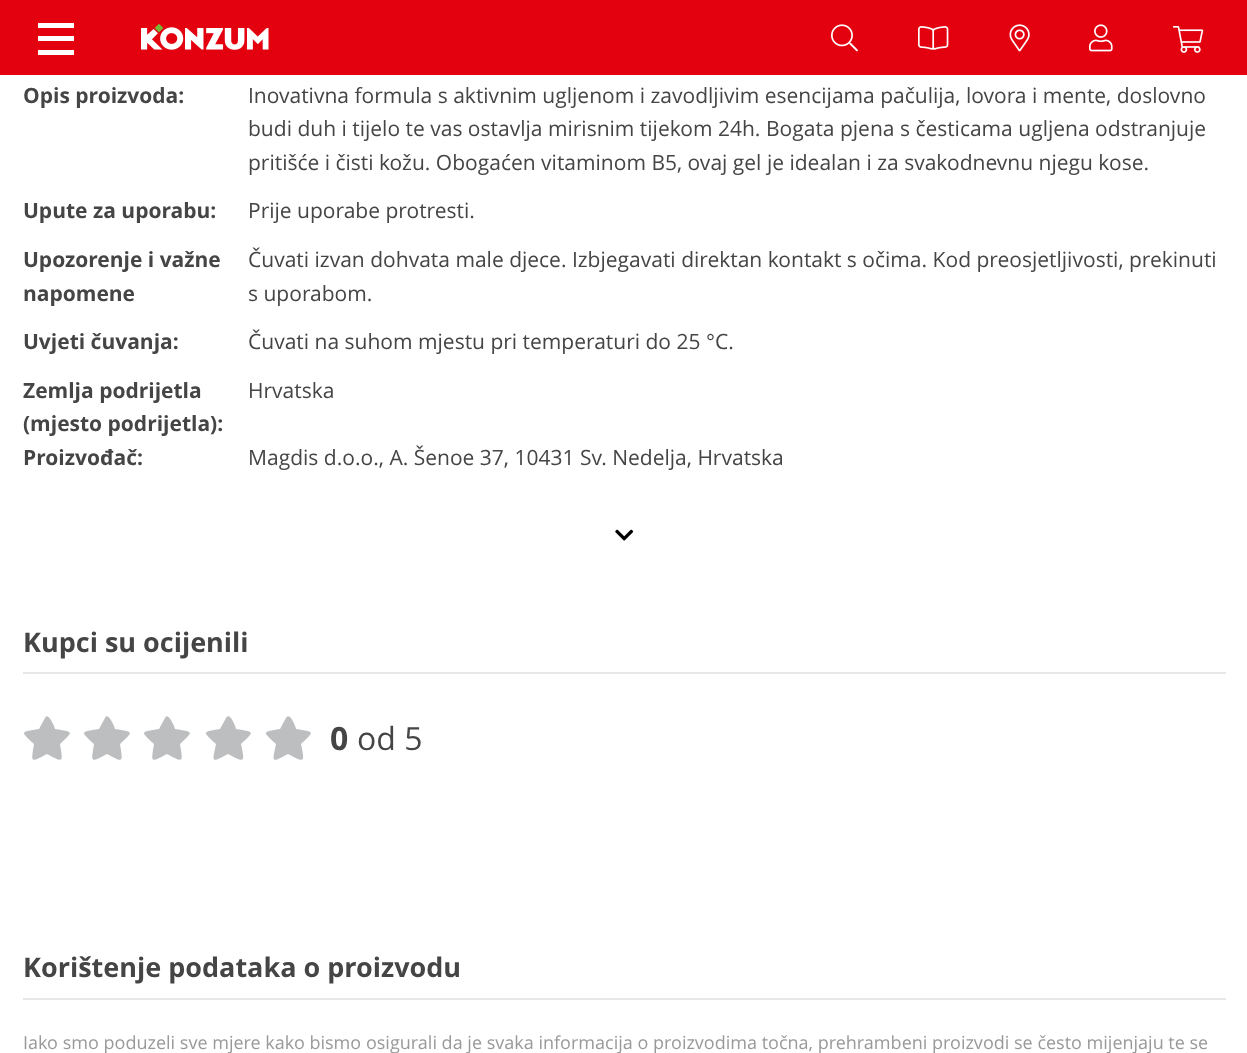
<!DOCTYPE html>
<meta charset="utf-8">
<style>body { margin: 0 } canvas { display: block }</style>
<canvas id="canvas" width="1247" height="1053"></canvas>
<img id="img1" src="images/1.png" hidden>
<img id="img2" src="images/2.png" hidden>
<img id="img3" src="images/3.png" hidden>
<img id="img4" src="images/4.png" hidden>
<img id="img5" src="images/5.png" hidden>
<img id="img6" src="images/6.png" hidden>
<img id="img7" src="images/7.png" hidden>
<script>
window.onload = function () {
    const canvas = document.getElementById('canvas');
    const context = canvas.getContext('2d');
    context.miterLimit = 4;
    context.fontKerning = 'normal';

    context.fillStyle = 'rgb(255, 255, 255)';
    context.fillRect(0, 0, 1247, 1053);
    context.fillStyle = 'rgb(227, 0, 15)';
    context.fillRect(0, 0, 1247, 75);
    context.fillStyle = 'rgb(255, 255, 255)';
    context.fillRect(38, 23, 36, 5);
    context.fillRect(38, 36, 36, 5);
    context.fillRect(38, 50, 36, 5);
    context.drawImage(document.getElementById('img1'), 141, 23, 128, 27);
    context.drawImage(document.getElementById('img2'), 831, 24, 27, 28);
    context.drawImage(document.getElementById('img3'), 918, 26, 31, 24);
    context.drawImage(document.getElementById('img4'), 1009, 24, 21, 28);
    context.drawImage(document.getElementById('img5'), 1089, 24, 24, 28);
    context.drawImage(document.getElementById('img6'), 1173, 26, 31, 27);
    context.drawImage(document.getElementById('img7'), 615, 529, 19, 12);
    context.fillStyle = 'rgb(230, 231, 232)';
    context.fillRect(23, 672, 1203, 2);
    context.fillStyle = 'rgb(188, 190, 192)';
    context.beginPath();
    context.moveTo(45, 718);
    context.bezierCurveTo(48, 711, 55, 728, 55, 729);
    context.bezierCurveTo(74, 732, 74, 731, 60, 744);
    context.bezierCurveTo(63, 763, 64, 763, 47, 754);
    context.bezierCurveTo(30, 763, 31, 763, 34, 744);
    context.bezierCurveTo(20, 731, 20, 732, 39, 729);
    context.closePath();
    context.fill();
    context.beginPath();
    context.moveTo(105, 718);
    context.bezierCurveTo(108, 711, 115, 728, 115, 729);
    context.bezierCurveTo(134, 732, 134, 731, 120, 744);
    context.bezierCurveTo(123, 763, 124, 763, 107, 754);
    context.bezierCurveTo(90, 763, 91, 763, 94, 744);
    context.bezierCurveTo(80, 731, 80, 732, 99, 729);
    context.closePath();
    context.fill();
    context.beginPath();
    context.moveTo(165, 718);
    context.bezierCurveTo(168, 711, 175, 728, 175, 729);
    context.bezierCurveTo(194, 732, 194, 731, 180, 744);
    context.bezierCurveTo(183, 763, 184, 763, 167, 754);
    context.bezierCurveTo(150, 763, 151, 763, 154, 744);
    context.bezierCurveTo(140, 731, 140, 732, 159, 729);
    context.closePath();
    context.fill();
    context.beginPath();
    context.moveTo(226, 718);
    context.bezierCurveTo(230, 711, 236, 728, 236, 729);
    context.bezierCurveTo(255, 732, 255, 731, 241, 744);
    context.bezierCurveTo(245, 763, 245, 763, 228, 754);
    context.bezierCurveTo(211, 763, 212, 763, 216, 744);
    context.bezierCurveTo(202, 731, 202, 732, 220, 729);
    context.closePath();
    context.fill();
    context.beginPath();
    context.moveTo(286, 718);
    context.bezierCurveTo(290, 711, 296, 728, 296, 729);
    context.bezierCurveTo(315, 732, 315, 731, 301, 744);
    context.bezierCurveTo(305, 763, 305, 763, 288, 754);
    context.bezierCurveTo(271, 763, 272, 763, 276, 744);
    context.bezierCurveTo(262, 731, 262, 732, 280, 729);
    context.closePath();
    context.fill();
    context.fillStyle = 'rgb(230, 231, 232)';
    context.fillRect(23, 998, 1203, 2);
    context.font = 'bold 21px Open Sans';
    context.fillStyle = 'rgb(69, 69, 69)';
    context.fillText('Opis proizvoda:', 23, 103);
    context.font = '21px Open Sans';
    context.fillText('Inovativna formula s aktivnim ugljenom i zavodljivim esencijama pačulija, lovora i mente, doslovno', 248, 103);
    context.fillText('budi duh i tijelo te vas ostavlja mirisnim tijekom 24h. Bogata pjena s česticama ugljena odstranjuje', 248, 136);
    context.fillText('pritišće i čisti kožu. Obogaćen vitaminom B5, ovaj gel je idealan i za svakodnevnu njegu kose.', 248, 170);
    context.font = 'bold 21px Open Sans';
    context.fillText('Upute za uporabu:', 23, 218);
    context.font = '21px Open Sans';
    context.fillText('Prije uporabe protresti.', 248, 218);
    context.font = 'bold 21px Open Sans';
    context.fillText('Upozorenje i važne', 23, 267);
    context.fillText('napomene', 23, 301);
    context.font = '21px Open Sans';
    context.fillText('Čuvati izvan dohvata male djece. Izbjegavati direktan kontakt s očima. Kod preosjetljivosti, prekinuti', 248, 267);
    context.fillText('s uporabom.', 248, 301);
    context.font = 'bold 21px Open Sans';
    context.fillText('Uvjeti čuvanja:', 23, 349);
    context.font = '21px Open Sans';
    context.fillText('Čuvati na suhom mjestu pri temperaturi do 25 °C.', 248, 349);
    context.font = 'bold 21px Open Sans';
    context.fillText('Zemlja podrijetla', 23, 398);
    context.fillText('(mjesto podrijetla):', 23, 431);
    context.font = '21px Open Sans';
    context.fillText('Hrvatska', 248, 398);
    context.font = 'bold 21px Open Sans';
    context.fillText('Proizvođač:', 23, 465);
    context.font = '21px Open Sans';
    context.fillText('Magdis d.o.o., A. Šenoe 37, 10431 Sv. Nedelja, Hrvatska', 248, 465);
    context.font = 'bold 27px Open Sans';
    context.fillText('Kupci su ocijenili', 23, 652);
    context.font = 'bold 32px Open Sans';
    context.fillText('0', 330, 750);
    context.font = '32px Open Sans';
    context.fillText('od 5', 357, 750);
    context.font = 'bold 27px Open Sans';
    context.fillText('Korištenje podataka o proizvodu', 23, 977);
    context.font = '18px Open Sans';
    context.fillStyle = 'rgb(153, 153, 153)';
    context.fillText('Iako smo poduzeli sve mjere kako bismo osigurali da je svaka informacija o proizvodima točna, prehrambeni proizvodi se često mijenjaju te se', 23, 1049);
};
</script>
